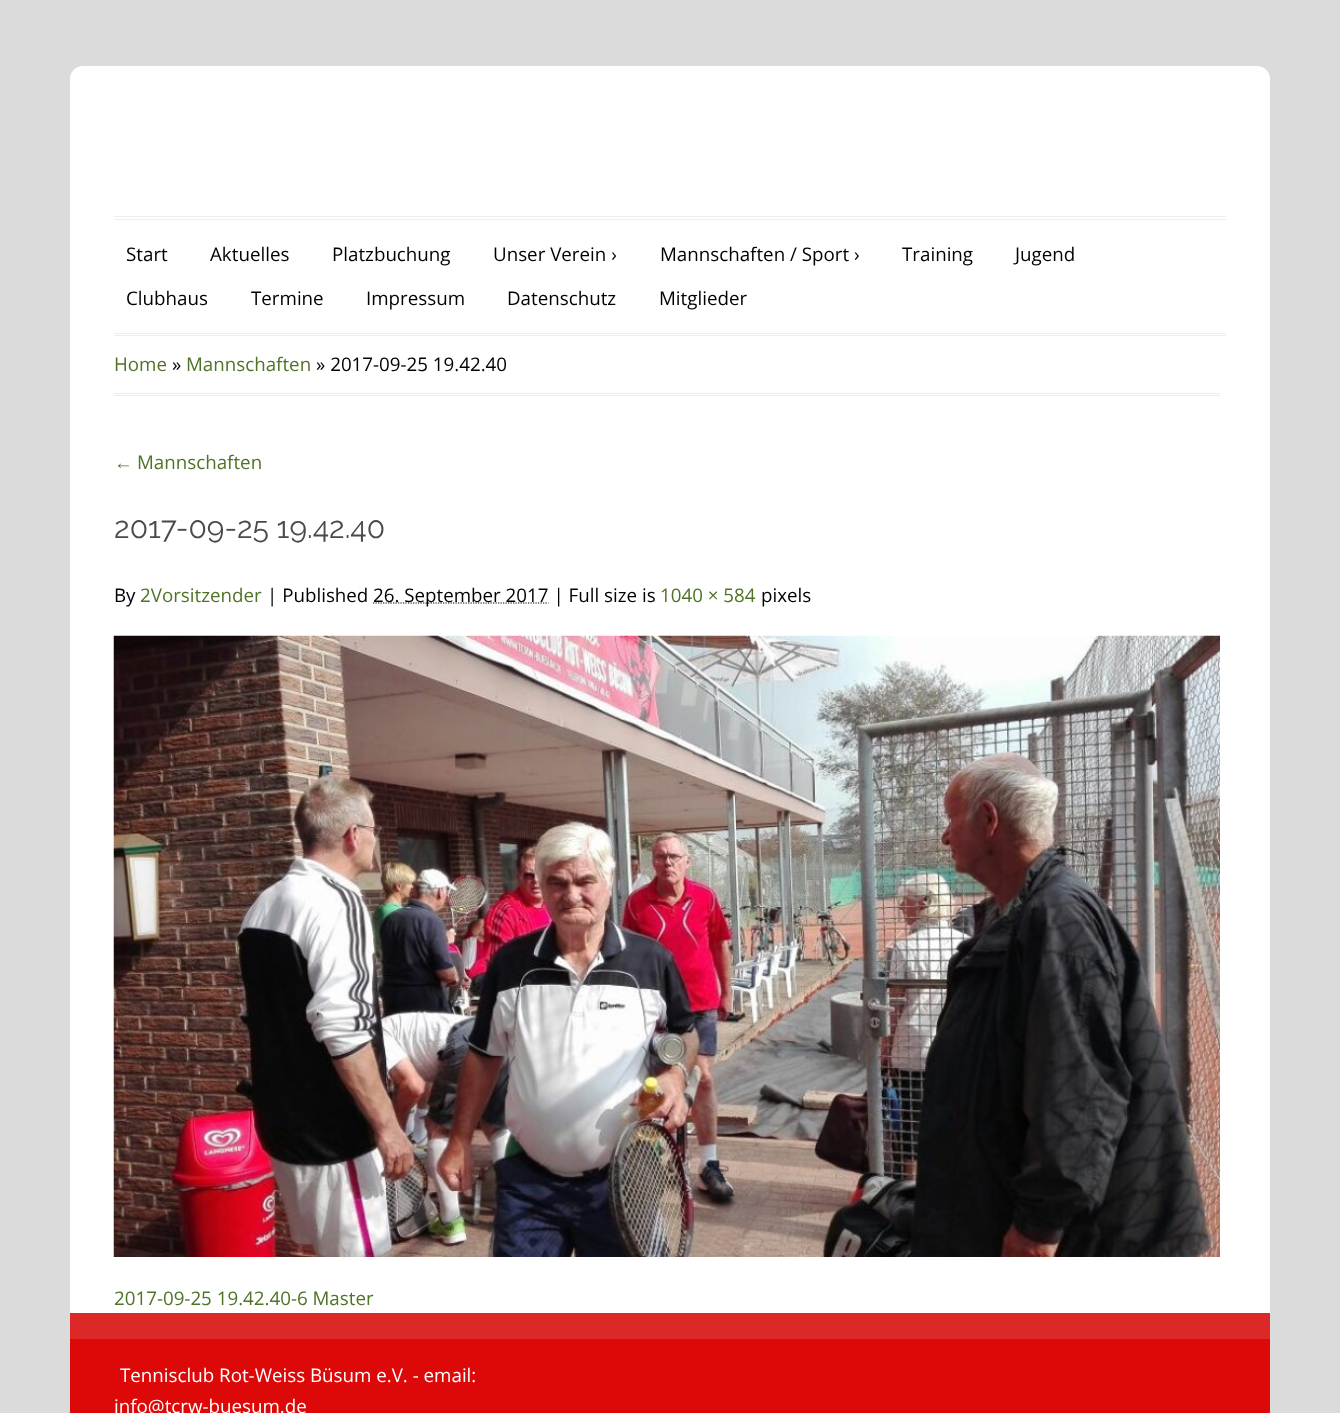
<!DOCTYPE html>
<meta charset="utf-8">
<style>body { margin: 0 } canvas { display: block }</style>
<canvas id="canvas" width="1340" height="1413"></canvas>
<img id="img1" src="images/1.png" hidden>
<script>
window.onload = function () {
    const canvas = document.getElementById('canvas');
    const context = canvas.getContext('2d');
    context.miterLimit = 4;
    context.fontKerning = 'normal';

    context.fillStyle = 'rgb(219, 219, 219)';
    context.fillRect(0, 0, 1340, 1413);
    context.fillStyle = 'rgb(255, 255, 255)';
    context.beginPath();
    context.roundRect(70, 66, 1200, 1248, [13, 13, 0, 0]);
    context.fill();
    context.fillStyle = 'rgb(238, 238, 238)';
    context.fillRect(114, 216, 1112, 1);
    context.fillRect(114, 219, 1112, 1);
    context.fillRect(114, 333, 1112, 1);
    context.fillRect(114, 335, 1112, 1);
    context.fillRect(114, 393, 1106, 1);
    context.fillRect(114, 395, 1106, 1);
    context.beginPath();
    context.moveTo(373, 603);
    context.lineTo(548.5, 603);
    context.strokeStyle = 'rgb(0, 0, 0)';
    context.lineWidth = 1.2;
    context.setLineDash([1.25, 1.25]);
    context.stroke();
    context.drawImage(document.getElementById('img1'), 113, 635, 1107, 622);
    context.fillStyle = 'rgb(221, 40, 40)';
    context.fillRect(70, 1313, 1200, 26);
    context.fillStyle = 'rgb(221, 8, 8)';
    context.fillRect(70, 1339, 1200, 74);
    context.font = '18.75px Open Sans';
    context.fillStyle = 'rgb(0, 0, 0)';
    context.fillText('Start', 126, 261);
    context.fillText('Aktuelles', 210, 261);
    context.fillText('Platzbuchung', 332, 261);
    context.fillText('Unser Verein ›', 493, 261);
    context.fillText('Mannschaften / Sport ›', 660, 261);
    context.fillText('Training', 902, 261);
    context.fillText('Jugend', 1015, 261);
    context.fillText('Clubhaus', 126, 305);
    context.fillText('Termine', 251, 305);
    context.fillText('Impressum', 366, 305);
    context.fillText('Datenschutz', 507, 305);
    context.fillText('Mitglieder', 659, 305);
    context.fillStyle = 'rgb(79, 115, 39)';
    context.fillText('Home', 114, 371);
    context.fillStyle = 'rgb(0, 0, 0)';
    context.fillText('»', 172, 371);
    context.fillStyle = 'rgb(79, 115, 39)';
    context.fillText('Mannschaften', 186, 371);
    context.fillStyle = 'rgb(0, 0, 0)';
    context.fillText('» 2017-09-25 19.42.40', 316, 371);
    context.font = '18.75px Liberation Sans';
    context.fillStyle = 'rgb(79, 115, 39)';
    context.fillText('←', 114, 469);
    context.font = '18.75px Open Sans';
    context.fillText('Mannschaften', 137, 469);
    context.font = '30px Raleway';
    context.fillStyle = 'rgb(74, 74, 74)';
    context.fillText('2017-09-25 19.42.40', 114, 538);
    context.font = '18.75px Open Sans';
    context.fillStyle = 'rgb(0, 0, 0)';
    context.fillText('By', 114, 602);
    context.fillStyle = 'rgb(79, 115, 39)';
    context.fillText('2Vorsitzender', 140, 602);
    context.fillStyle = 'rgb(0, 0, 0)';
    context.fillText('| Published', 267, 602);
    context.fillText('26. September 2017 | Full size is', 373, 602);
    context.fillStyle = 'rgb(79, 115, 39)';
    context.fillText('1040 × 584', 660, 602);
    context.fillStyle = 'rgb(0, 0, 0)';
    context.fillText('pixels', 761, 602);
    context.fillStyle = 'rgb(79, 115, 39)';
    context.fillText('2017-09-25 19.42.40-6 Master', 114, 1305);
    context.fillStyle = 'rgb(255, 255, 255)';
    context.fillText('Tennisclub Rot-Weiss Büsum e.V. - email:', 120, 1382);
    context.fillText('info@tcrw-buesum.de', 114, 1413);
};
</script>
